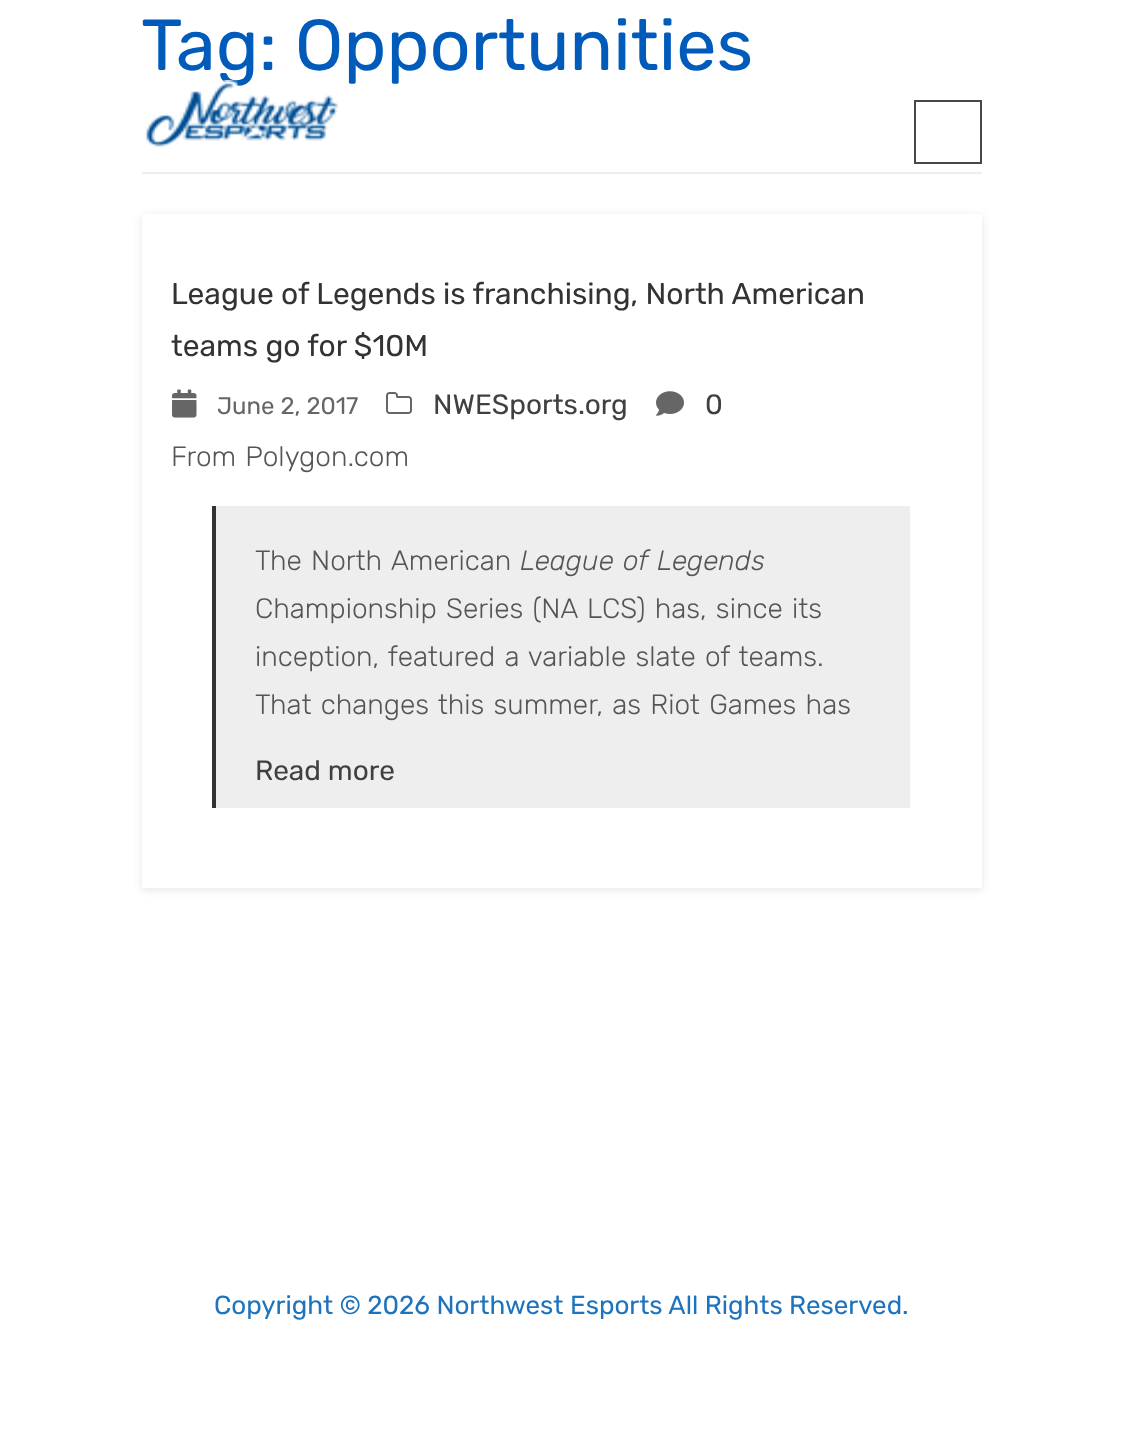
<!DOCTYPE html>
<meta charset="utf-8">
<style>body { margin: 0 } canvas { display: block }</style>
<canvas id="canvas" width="1121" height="1456"></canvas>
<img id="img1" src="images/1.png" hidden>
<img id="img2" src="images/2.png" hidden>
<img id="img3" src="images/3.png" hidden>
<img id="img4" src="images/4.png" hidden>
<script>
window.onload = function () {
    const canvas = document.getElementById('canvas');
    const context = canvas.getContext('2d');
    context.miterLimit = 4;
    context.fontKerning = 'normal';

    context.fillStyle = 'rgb(255, 255, 255)';
    context.fillRect(0, 0, 1121, 1456);
    context.fillStyle = 'rgb(238, 238, 238)';
    context.fillRect(142, 172, 840, 2);
    context.save();
    context.beginPath();
    context.moveTo(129, 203);
    context.lineTo(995, 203);
    context.lineTo(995, 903);
    context.lineTo(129, 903);
    context.closePath();
    context.moveTo(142, 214);
    context.lineTo(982, 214);
    context.lineTo(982, 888);
    context.lineTo(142, 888);
    context.closePath();
    context.clip('evenodd');
    context.fillStyle = 'rgba(0, 0, 0, 0.1)';
    context.filter = 'blur(4px)';
    context.beginPath();
    context.rect(142, 216, 840, 674);
    context.fill();
    context.filter = 'none';
    context.restore();
    context.drawImage(document.getElementById('img1'), 172, 389, 25, 29);
    context.drawImage(document.getElementById('img2'), 386, 392, 26, 22);
    context.drawImage(document.getElementById('img3'), 656, 391, 28, 25);
    context.fillRect(216, 506, 694, 302);
    context.fillStyle = 'rgb(51, 51, 51)';
    context.fillRect(212, 506, 4, 302);
    context.strokeStyle = 'rgb(70, 70, 70)';
    context.lineWidth = 2;
    context.strokeRect(915, 101, 66, 62);
    context.font = '72px Rubik';
    context.fillStyle = 'rgb(0, 91, 187)';
    context.fillText('Tag: Opportunities', 141, 70);
    context.font = '30px Rubik';
    context.fillStyle = 'rgb(51, 51, 51)';
    context.fillText('League of Legends is franchising, North American', 171, 304);
    context.fillText('teams go for $10M', 171, 356);
    context.font = '24px Rubik';
    context.fillStyle = 'rgb(102, 102, 102)';
    context.fillText('June 2, 2017', 217, 414);
    context.font = '28px Rubik';
    context.fillStyle = 'rgb(64, 64, 64)';
    context.fillText('NWESports.org', 433, 414);
    context.fillText('0', 705, 414);
    context.wordSpacing = '2px';
    context.font = '300 28px Rubik';
    context.fillStyle = 'rgb(85, 85, 85)';
    context.fillText('From Polygon.com', 171, 466);
    context.fillText('The North American', 255, 570);
    context.font = 'italic 300 28px Rubik';
    context.fillText('League of Legends', 520, 570);
    context.font = '300 28px Rubik';
    context.fillText('Championship Series (NA LCS) has, since its', 255, 618);
    context.fillText('inception, featured a variable slate of teams.', 255, 666);
    context.fillText('That changes this summer, as Riot Games has', 255, 714);
    context.wordSpacing = '0px';
    context.font = '28px Rubik';
    context.fillStyle = 'rgb(64, 64, 64)';
    context.fillText('Read more', 255, 780);
    context.drawImage(document.getElementById('img4'), 146, 80, 192, 67);
    context.font = '26px Rubik';
    context.fillStyle = 'rgb(30, 115, 190)';
    context.fillText('Copyright © 2026 Northwest Esports All Rights Reserved.', 214, 1314);
};
</script>
